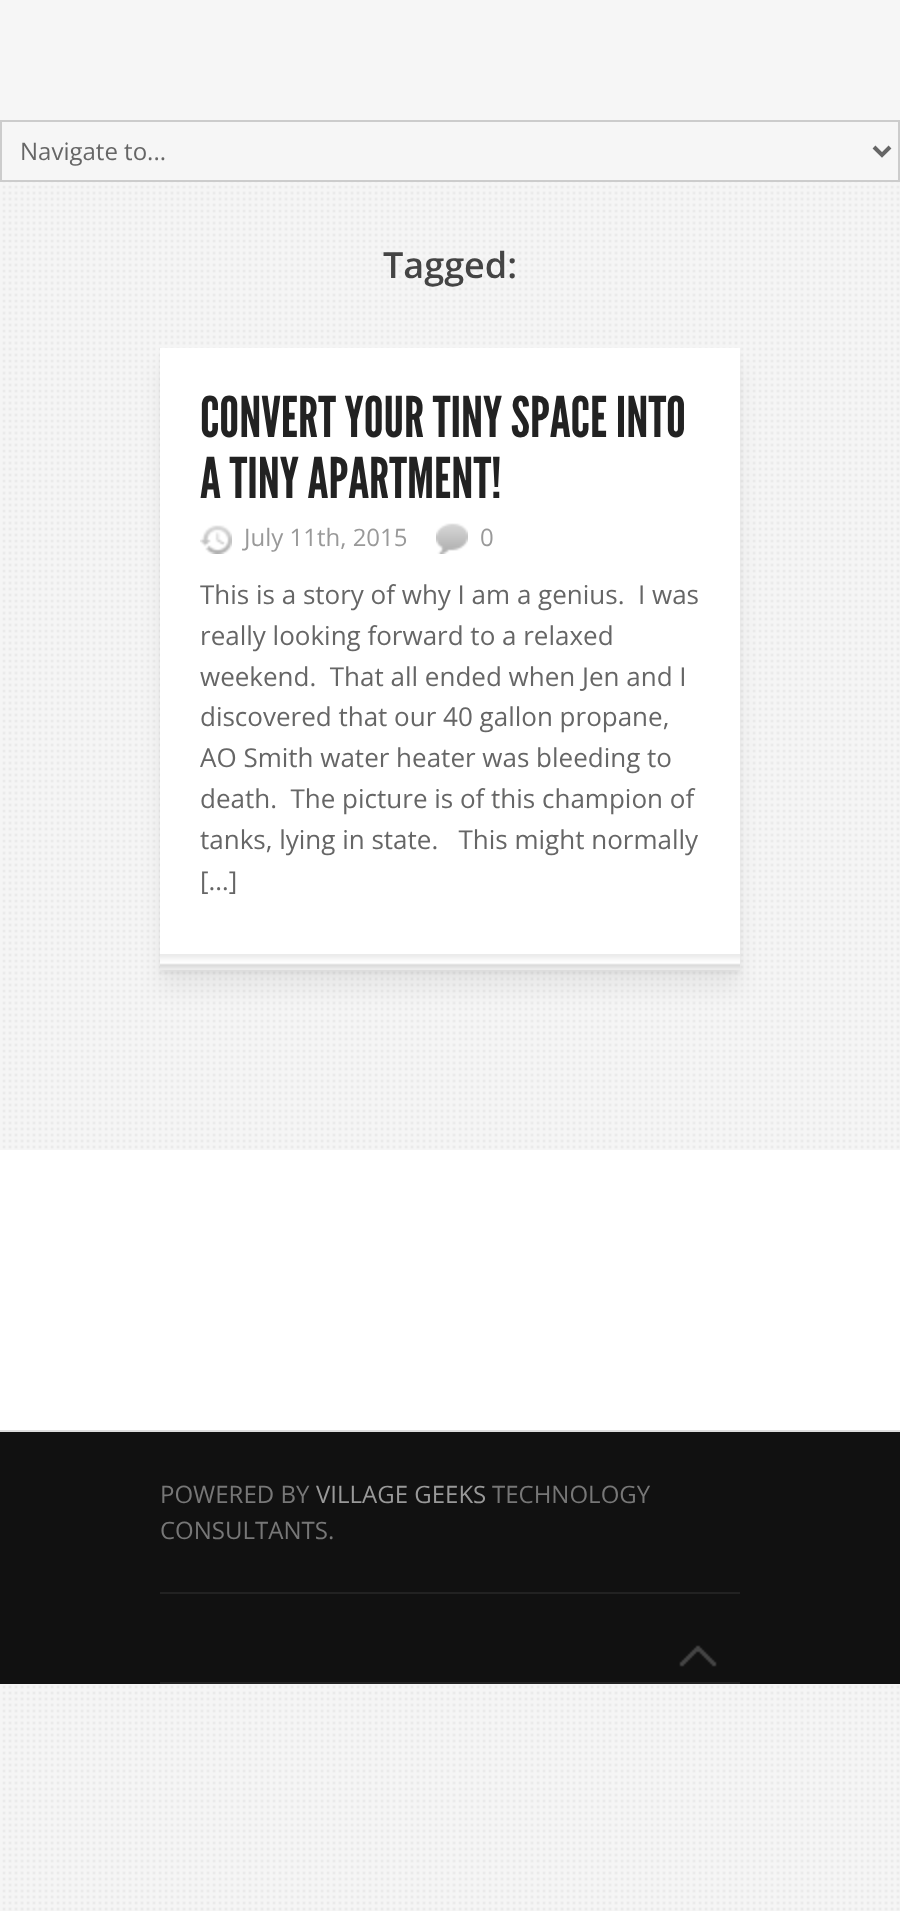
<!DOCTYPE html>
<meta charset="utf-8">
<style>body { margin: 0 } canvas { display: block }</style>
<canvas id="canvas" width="900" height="1911"></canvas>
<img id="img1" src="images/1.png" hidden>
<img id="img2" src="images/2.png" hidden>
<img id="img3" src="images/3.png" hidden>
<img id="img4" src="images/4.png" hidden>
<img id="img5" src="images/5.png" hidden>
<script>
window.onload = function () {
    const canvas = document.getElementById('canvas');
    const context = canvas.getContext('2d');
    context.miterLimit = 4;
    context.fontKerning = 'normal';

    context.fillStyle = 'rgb(255, 255, 255)';
    context.fillRect(0, 0, 900, 1911);
    context.drawImage(document.getElementById('img1'), 0, 182, 900, 1729);
    context.fillStyle = 'rgb(246, 246, 246)';
    context.fillRect(0, 0, 900, 180);
    context.strokeStyle = 'rgb(204, 204, 204)';
    context.lineWidth = 2;
    context.strokeRect(1, 121, 898, 60);
    context.beginPath();
    context.moveTo(874, 147);
    context.lineTo(882, 155);
    context.lineTo(890, 147);
    context.strokeStyle = 'rgb(102, 102, 102)';
    context.lineWidth = 4;
    context.stroke();
    context.fillStyle = 'rgba(0, 0, 0, 0.05)';
    context.filter = 'blur(2px)';
    context.beginPath();
    context.rect(160, 352, 580, 622);
    context.fill();
    context.filter = 'none';
    context.filter = 'blur(10px)';
    context.beginPath();
    context.rect(160, 368, 580, 622);
    context.fill();
    context.filter = 'none';
    context.fillStyle = 'rgb(255, 255, 255)';
    context.fillRect(160, 348, 580, 622);
    context.drawImage(document.getElementById('img2'), 160, 954, 580, 16);
    context.drawImage(document.getElementById('img3'), 200, 525, 32, 29);
    context.drawImage(document.getElementById('img4'), 436, 523, 32, 31);
    context.fillRect(0, 1150, 900, 280);
    context.fillStyle = 'rgb(17, 17, 17)';
    context.fillRect(0, 1432, 900, 252);
    context.fillStyle = 'rgb(221, 221, 221)';
    context.fillRect(0, 1430, 900, 2);
    context.fillStyle = 'rgb(34, 34, 34)';
    context.fillRect(160, 1592, 580, 2);
    context.fillRect(160, 1682, 580, 2);
    context.drawImage(document.getElementById('img5'), 679, 1645, 38, 22);
    context.font = '24px Open Sans';
    context.fillStyle = 'rgb(102, 102, 102)';
    context.fillText('Navigate to...', 20, 160);
    context.font = '600 36px Open Sans';
    context.fillStyle = 'rgb(68, 68, 68)';
    context.fillText('Tagged:', 383, 278);
    context.font = '56px League Gothic';
    context.fillStyle = 'rgb(34, 34, 34)';
    context.fillText('CONVERT YOUR TINY SPACE INTO', 200, 437);
    context.fillText('A TINY APARTMENT!', 200, 498);
    context.font = '24px Open Sans';
    context.fillStyle = 'rgb(153, 153, 153)';
    context.fillText('July 11th, 2015', 244, 546);
    context.fillText('0', 480, 546);
    context.font = '26px Open Sans';
    context.fillStyle = 'rgb(102, 102, 102)';
    context.fillText('This is a story of why I am a genius.  I was', 200, 604);
    context.fillText('really looking forward to a relaxed', 200, 645);
    context.fillText('weekend.  That all ended when Jen and I', 200, 686);
    context.fillText('discovered that our 40 gallon propane,', 200, 726);
    context.fillText('AO Smith water heater was bleeding to', 200, 767);
    context.fillText('death.  The picture is of this champion of', 200, 808);
    context.fillText('tanks, lying in state.   This might normally', 200, 849);
    context.fillText('[…]', 200, 890);
    context.font = '24px Open Sans';
    context.fillStyle = 'rgb(119, 119, 119)';
    context.fillText('POWERED BY', 160, 1503);
    context.fillStyle = 'rgb(153, 153, 153)';
    context.fillText('VILLAGE GEEKS', 316, 1503);
    context.fillStyle = 'rgb(119, 119, 119)';
    context.fillText('TECHNOLOGY', 492, 1503);
    context.fillText('CONSULTANTS.', 160, 1539);
};
</script>
